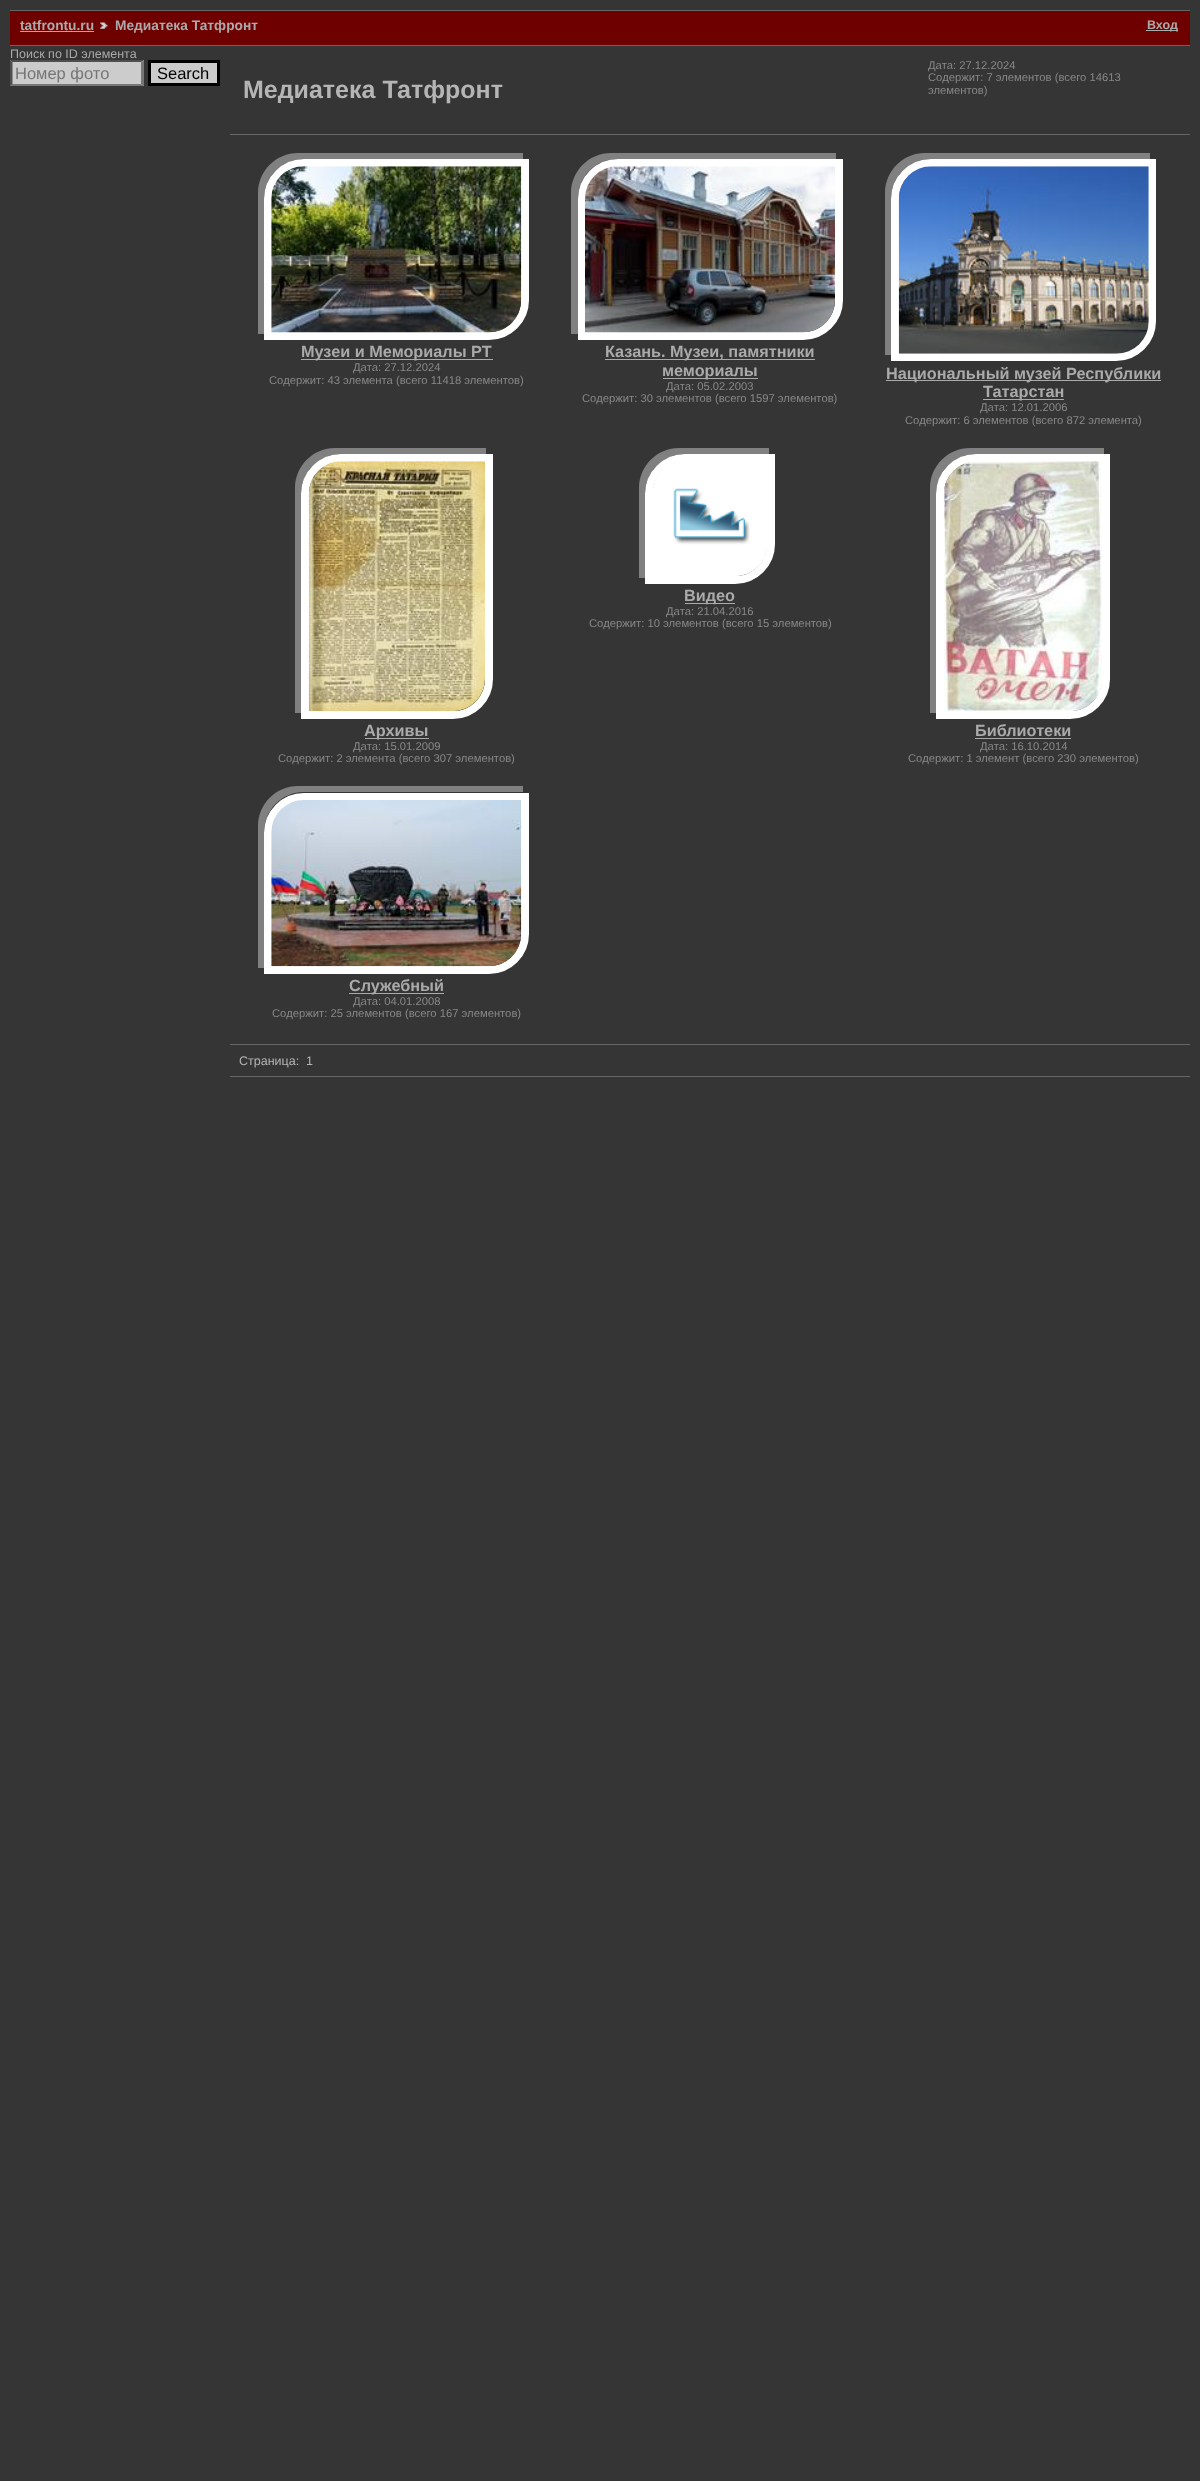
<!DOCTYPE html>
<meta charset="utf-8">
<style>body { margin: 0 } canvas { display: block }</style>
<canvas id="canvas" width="1200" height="2481"></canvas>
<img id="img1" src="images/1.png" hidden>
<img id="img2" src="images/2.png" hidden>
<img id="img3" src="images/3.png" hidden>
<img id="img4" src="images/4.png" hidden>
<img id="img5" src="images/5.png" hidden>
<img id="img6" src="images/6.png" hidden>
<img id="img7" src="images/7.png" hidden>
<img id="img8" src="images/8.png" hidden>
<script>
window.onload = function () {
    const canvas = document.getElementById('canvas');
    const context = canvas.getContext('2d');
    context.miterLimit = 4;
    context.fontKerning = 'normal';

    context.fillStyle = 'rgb(53, 53, 53)';
    context.fillRect(0, 0, 1200, 2481);
    context.fillStyle = 'rgb(102, 102, 102)';
    context.fillRect(10, 10, 1180, 1);
    context.fillRect(10, 45, 1180, 1);
    context.fillStyle = 'rgb(111, 0, 0)';
    context.fillRect(10, 11, 1180, 34);
    context.fillStyle = 'rgb(170, 170, 170)';
    context.fillRect(20, 31, 74, 1);
    context.drawImage(document.getElementById('img1'), 99, 22, 9, 7);
    context.fillRect(1146, 30, 32, 1);
    context.fillStyle = 'rgb(204, 204, 204)';
    context.fillRect(10, 60, 134, 26);
    context.fillStyle = 'rgb(79, 79, 79)';
    context.beginPath();
    context.moveTo(10, 60);
    context.lineTo(144, 60);
    context.lineTo(141, 62);
    context.lineTo(12, 62);
    context.closePath();
    context.fill();
    context.fillStyle = 'rgb(118, 118, 118)';
    context.beginPath();
    context.moveTo(144, 60);
    context.lineTo(144, 86);
    context.lineTo(141, 84);
    context.lineTo(141, 62.5);
    context.closePath();
    context.fill();
    context.beginPath();
    context.moveTo(144, 86);
    context.lineTo(10, 86);
    context.lineTo(12, 84);
    context.lineTo(141, 84);
    context.closePath();
    context.fill();
    context.fillStyle = 'rgb(79, 79, 79)';
    context.beginPath();
    context.moveTo(10, 86);
    context.lineTo(10, 60);
    context.lineTo(12.5, 62.5);
    context.lineTo(12.5, 84);
    context.closePath();
    context.fill();
    context.fillStyle = 'rgb(204, 204, 204)';
    context.beginPath();
    context.rect(149.5, 61.5, 69, 23);
    context.fill();
    context.strokeStyle = 'rgb(0, 0, 0)';
    context.lineWidth = 3;
    context.stroke();
    context.fillStyle = 'rgb(102, 102, 102)';
    context.fillRect(230, 134, 960, 1);
    context.fillRect(230, 1044, 960, 1);
    context.fillStyle = 'rgb(128, 128, 128)';
    context.beginPath();
    context.moveTo(298, 153);
    context.bezierCurveTo(276, 153, 258, 171, 258, 193);
    context.lineTo(258, 334);
    context.lineTo(264, 334);
    context.lineTo(264, 199);
    context.bezierCurveTo(264, 177, 282, 159, 304, 159);
    context.lineTo(523, 159);
    context.lineTo(523, 153);
    context.closePath();
    context.fill();
    context.beginPath();
    context.roundRect(268, 163, 257, 173, [36, 0, 36, 0]);
    context.strokeStyle = 'rgb(255, 255, 255)';
    context.lineWidth = 8;
    context.stroke();
    context.drawImage(document.getElementById('img2'), 271, 166, 251, 167);
    context.fillStyle = 'rgb(170, 170, 170)';
    context.fillRect(301, 359, 192, 1);
    context.fillStyle = 'rgb(128, 128, 128)';
    context.beginPath();
    context.moveTo(611, 153);
    context.bezierCurveTo(589, 153, 571, 171, 571, 193);
    context.lineTo(571, 334);
    context.lineTo(578, 334);
    context.lineTo(578, 199);
    context.bezierCurveTo(578, 177, 595, 159, 618, 159);
    context.lineTo(836, 159);
    context.lineTo(836, 153);
    context.closePath();
    context.fill();
    context.fillStyle = 'rgb(0, 0, 0)';
    context.beginPath();
    context.roundRect(582, 163, 257, 173, [36, 0, 36, 0]);
    context.fill();
    context.stroke();
    context.drawImage(document.getElementById('img3'), 585, 166, 250, 167);
    context.fillStyle = 'rgb(170, 170, 170)';
    context.fillRect(605, 359, 210, 1);
    context.fillRect(663, 378, 95, 1);
    context.fillStyle = 'rgb(128, 128, 128)';
    context.beginPath();
    context.moveTo(925, 153);
    context.bezierCurveTo(903, 153, 885, 171, 885, 193);
    context.lineTo(885, 355);
    context.lineTo(891, 355);
    context.lineTo(891, 199);
    context.bezierCurveTo(891, 177, 909, 159, 931, 159);
    context.lineTo(1150, 159);
    context.lineTo(1150, 153);
    context.closePath();
    context.fill();
    context.beginPath();
    context.roundRect(895, 163, 257, 194, [36, 0, 36, 0]);
    context.stroke();
    context.drawImage(document.getElementById('img4'), 898, 166, 251, 188);
    context.fillStyle = 'rgb(170, 170, 170)';
    context.fillRect(886, 380, 275, 1);
    context.fillRect(983, 399, 81, 1);
    context.fillStyle = 'rgb(128, 128, 128)';
    context.beginPath();
    context.moveTo(679, 448);
    context.bezierCurveTo(657, 448, 639, 466, 639, 488);
    context.lineTo(639, 578);
    context.lineTo(645, 578);
    context.lineTo(645, 494);
    context.bezierCurveTo(645, 472, 663, 454, 685, 454);
    context.lineTo(769, 454);
    context.lineTo(769, 448);
    context.closePath();
    context.fill();
    context.beginPath();
    context.roundRect(649, 458, 122, 122, [36, 0, 36, 0]);
    context.stroke();
    context.drawImage(document.getElementById('img5'), 653, 462, 114, 114);
    context.fillStyle = 'rgb(170, 170, 170)';
    context.fillRect(685, 603, 50, 1);
    context.fillStyle = 'rgb(128, 128, 128)';
    context.beginPath();
    context.moveTo(335, 448);
    context.bezierCurveTo(313, 448, 295, 466, 295, 488);
    context.lineTo(295, 713);
    context.lineTo(301, 713);
    context.lineTo(301, 494);
    context.bezierCurveTo(301, 472, 319, 454, 341, 454);
    context.lineTo(486, 454);
    context.lineTo(486, 448);
    context.closePath();
    context.fill();
    context.fillStyle = 'rgb(0, 0, 0)';
    context.beginPath();
    context.roundRect(305, 458, 184, 257, [36, 0, 36, 0]);
    context.fill();
    context.stroke();
    context.drawImage(document.getElementById('img6'), 308, 461, 177, 251);
    context.fillStyle = 'rgb(170, 170, 170)';
    context.fillRect(365, 738, 64, 1);
    context.fillStyle = 'rgb(128, 128, 128)';
    context.beginPath();
    context.moveTo(970, 448);
    context.bezierCurveTo(948, 448, 930, 466, 930, 488);
    context.lineTo(930, 713);
    context.lineTo(936, 713);
    context.lineTo(936, 494);
    context.bezierCurveTo(936, 472, 954, 454, 976, 454);
    context.lineTo(1104, 454);
    context.lineTo(1104, 448);
    context.closePath();
    context.fill();
    context.beginPath();
    context.roundRect(940, 458, 166, 257, [36, 0, 36, 0]);
    context.stroke();
    context.drawImage(document.getElementById('img7'), 943, 461, 159, 250);
    context.fillStyle = 'rgb(170, 170, 170)';
    context.fillRect(975, 738, 96, 1);
    context.fillStyle = 'rgb(128, 128, 128)';
    context.beginPath();
    context.moveTo(298, 786);
    context.bezierCurveTo(276, 786, 258, 804, 258, 826);
    context.lineTo(258, 968);
    context.lineTo(264, 968);
    context.lineTo(264, 832);
    context.bezierCurveTo(264, 810, 282, 792, 304, 792);
    context.lineTo(523, 792);
    context.lineTo(523, 786);
    context.closePath();
    context.fill();
    context.beginPath();
    context.roundRect(268, 797, 257, 173, [36, 0, 36, 0]);
    context.stroke();
    context.drawImage(document.getElementById('img8'), 271, 800, 251, 167);
    context.fillStyle = 'rgb(170, 170, 170)';
    context.fillRect(349, 993, 95, 1);
    context.fillStyle = 'rgb(102, 102, 102)';
    context.fillRect(230, 1076, 960, 1);
    context.font = 'bold 13.75px Liberation Sans';
    context.fillStyle = 'rgb(170, 170, 170)';
    context.fillText('tatfrontu.ru', 20, 30);
    context.fillText('Медиатека Татфронт', 115, 30);
    context.font = 'bold 12.5px Liberation Sans';
    context.fillText('Вход', 1147, 29);
    context.font = '12.5px Liberation Sans';
    context.fillText('Поиск по ID элемента', 10, 58);
    context.font = '16.5px Liberation Sans';
    context.fillStyle = 'rgb(117, 117, 117)';
    context.fillText('Номер фото', 15, 79);
    context.fillStyle = 'rgb(0, 0, 0)';
    context.fillText('Search', 157, 79);
    context.font = 'bold 25px Liberation Sans';
    context.fillStyle = 'rgb(181, 181, 181)';
    context.fillText('Медиатека Татфронт', 243, 98);
    context.font = '11.25px Liberation Sans';
    context.fillStyle = 'rgb(136, 136, 136)';
    context.fillText('Дата: 27.12.2024', 928, 69);
    context.fillText('Содержит: 7 элементов (всего 14613', 928, 81);
    context.fillText('элементов)', 928, 94);
    context.font = 'bold 16.25px Liberation Sans';
    context.fillStyle = 'rgb(170, 170, 170)';
    context.fillText('Музеи и Мемориалы РТ', 301, 357);
    context.font = '11.25px Liberation Sans';
    context.fillStyle = 'rgb(136, 136, 136)';
    context.fillText('Дата: 27.12.2024', 353, 371);
    context.fillText('Содержит: 43 элемента (всего 11418 элементов)', 269, 384);
    context.font = 'bold 16.25px Liberation Sans';
    context.fillStyle = 'rgb(170, 170, 170)';
    context.fillText('Казань. Музеи, памятники', 605, 357);
    context.fillText('мемориалы', 662, 376);
    context.font = '11.25px Liberation Sans';
    context.fillStyle = 'rgb(136, 136, 136)';
    context.fillText('Дата: 05.02.2003', 666, 390);
    context.fillText('Содержит: 30 элементов (всего 1597 элементов)', 582, 402);
    context.font = 'bold 16.25px Liberation Sans';
    context.fillStyle = 'rgb(170, 170, 170)';
    context.fillText('Национальный музей Республики', 886, 379);
    context.fillText('Татарстан', 983, 397);
    context.font = '11.25px Liberation Sans';
    context.fillStyle = 'rgb(136, 136, 136)';
    context.fillText('Дата: 12.01.2006', 980, 411);
    context.fillText('Содержит: 6 элементов (всего 872 элемента)', 905, 424);
    context.font = 'bold 16.25px Liberation Sans';
    context.fillStyle = 'rgb(170, 170, 170)';
    context.fillText('Видео', 684, 601);
    context.font = '11.25px Liberation Sans';
    context.fillStyle = 'rgb(136, 136, 136)';
    context.fillText('Дата: 21.04.2016', 666, 615);
    context.fillText('Содержит: 10 элементов (всего 15 элементов)', 589, 627);
    context.font = 'bold 16.25px Liberation Sans';
    context.fillStyle = 'rgb(170, 170, 170)';
    context.fillText('Архивы', 364, 736);
    context.font = '11.25px Liberation Sans';
    context.fillStyle = 'rgb(136, 136, 136)';
    context.fillText('Дата: 15.01.2009', 353, 750);
    context.fillText('Содержит: 2 элемента (всего 307 элементов)', 278, 762);
    context.font = 'bold 16.25px Liberation Sans';
    context.fillStyle = 'rgb(170, 170, 170)';
    context.fillText('Библиотеки', 975, 736);
    context.font = '11.25px Liberation Sans';
    context.fillStyle = 'rgb(136, 136, 136)';
    context.fillText('Дата: 16.10.2014', 980, 750);
    context.fillText('Содержит: 1 элемент (всего 230 элементов)', 908, 762);
    context.font = 'bold 16.25px Liberation Sans';
    context.fillStyle = 'rgb(170, 170, 170)';
    context.fillText('Служебный', 349, 991);
    context.font = '11.25px Liberation Sans';
    context.fillStyle = 'rgb(136, 136, 136)';
    context.fillText('Дата: 04.01.2008', 353, 1005);
    context.fillText('Содержит: 25 элементов (всего 167 элементов)', 272, 1017);
    context.font = '12.5px Liberation Sans';
    context.fillStyle = 'rgb(181, 181, 181)';
    context.fillText('Страница:', 239, 1065);
    context.fillText('1', 306, 1065);
};
</script>
